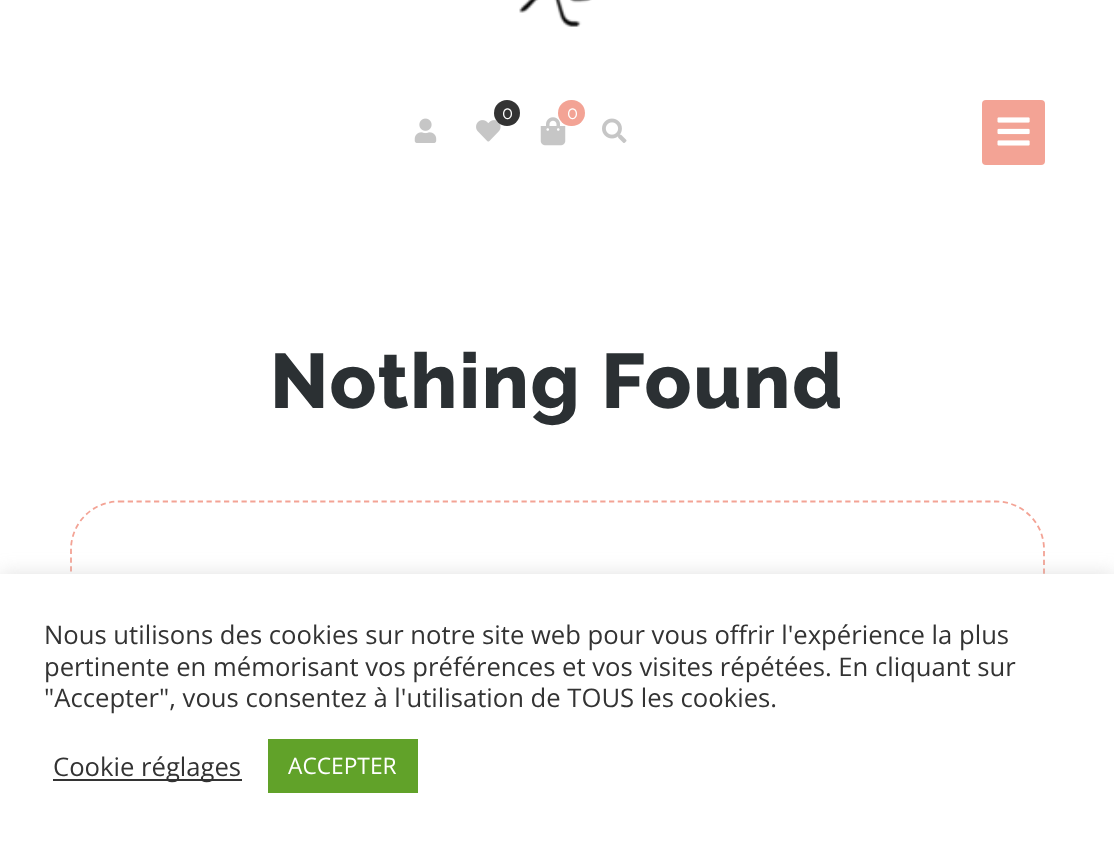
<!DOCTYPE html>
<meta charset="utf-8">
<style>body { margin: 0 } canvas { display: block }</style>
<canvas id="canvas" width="1114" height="844"></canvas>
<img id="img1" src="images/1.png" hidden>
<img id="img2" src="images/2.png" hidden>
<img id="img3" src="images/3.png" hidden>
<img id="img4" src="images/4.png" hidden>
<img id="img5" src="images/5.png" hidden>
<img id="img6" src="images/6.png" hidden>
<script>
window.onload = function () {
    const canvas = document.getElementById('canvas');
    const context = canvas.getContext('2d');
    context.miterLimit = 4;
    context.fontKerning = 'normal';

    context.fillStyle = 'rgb(255, 255, 255)';
    context.fillRect(0, 0, 1114, 844);
    context.drawImage(document.getElementById('img1'), 519, 0, 73, 27);
    context.drawImage(document.getElementById('img2'), 476, 120, 25, 22);
    context.fillStyle = 'rgb(51, 51, 51)';
    context.beginPath();
    context.arc(507, 113, 13, 0, 2 * Math.PI);
    context.fill();
    context.drawImage(document.getElementById('img3'), 540, 117, 26, 29);
    context.fillStyle = 'rgb(243, 163, 149)';
    context.beginPath();
    context.roundRect(558, 100, 27, 26, 13);
    context.fill();
    context.drawImage(document.getElementById('img4'), 414, 118, 23, 25);
    context.drawImage(document.getElementById('img5'), 602, 118, 25, 25);
    context.beginPath();
    context.roundRect(982, 100, 63, 65, 4);
    context.fill();
    context.drawImage(document.getElementById('img6'), 997, 117, 33, 29);
    context.beginPath();
    context.moveTo(119, 501.5);
    context.lineTo(996, 501.5);
    context.bezierCurveTo(1022.5, 501.5, 1044, 523, 1044, 549.5);
    context.lineTo(1044, 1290);
    context.bezierCurveTo(1044, 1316.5, 1022.5, 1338, 996, 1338);
    context.lineTo(119, 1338);
    context.bezierCurveTo(92.5, 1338, 71, 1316.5, 71, 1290);
    context.lineTo(71, 549.5);
    context.bezierCurveTo(71, 523, 92.5, 501.5, 119, 501.5);
    context.closePath();
    context.strokeStyle = 'rgb(243, 163, 149)';
    context.lineWidth = 1.8;
    context.setLineDash([5.25, 3.5]);
    context.stroke();
    context.fillStyle = 'rgba(172, 171, 171, 0.3)';
    context.filter = 'blur(9px)';
    context.beginPath();
    context.rect(0, 572, 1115, 272);
    context.fill();
    context.filter = 'none';
    context.fillStyle = 'rgb(255, 255, 255)';
    context.fillRect(0, 574, 1114, 270);
    context.fillStyle = 'rgb(51, 51, 51)';
    context.fillRect(53, 779, 189, 2);
    context.fillStyle = 'rgb(97, 162, 41)';
    context.fillRect(268, 739, 150, 54);
    context.font = '18px Raleway';
    context.fillStyle = 'rgb(255, 255, 255)';
    context.fillText('0', 502, 119);
    context.fillText('0', 567, 119);
    context.letterSpacing = '1.75px';
    context.font = '800 77px Raleway';
    context.fillStyle = 'rgb(43, 48, 51)';
    context.fillText('Nothing Found', 270, 408);
    context.letterSpacing = '0px';
    context.font = '25.65px Open Sans';
    context.fillStyle = 'rgb(51, 51, 51)';
    context.fillText('Nous utilisons des cookies sur notre site web pour vous offrir l\'expérience la plus', 44, 644);
    context.fillText('pertinente en mémorisant vos préférences et vos visites répétées. En cliquant sur', 44, 676);
    context.fillText('"Accepter", vous consentez à l\'utilisation de TOUS les cookies.', 44, 707);
    context.fillText('Cookie réglages', 53, 776);
    context.font = '22.75px Open Sans';
    context.fillStyle = 'rgb(255, 255, 255)';
    context.fillText('ACCEPTER', 288, 774);
};
</script>
